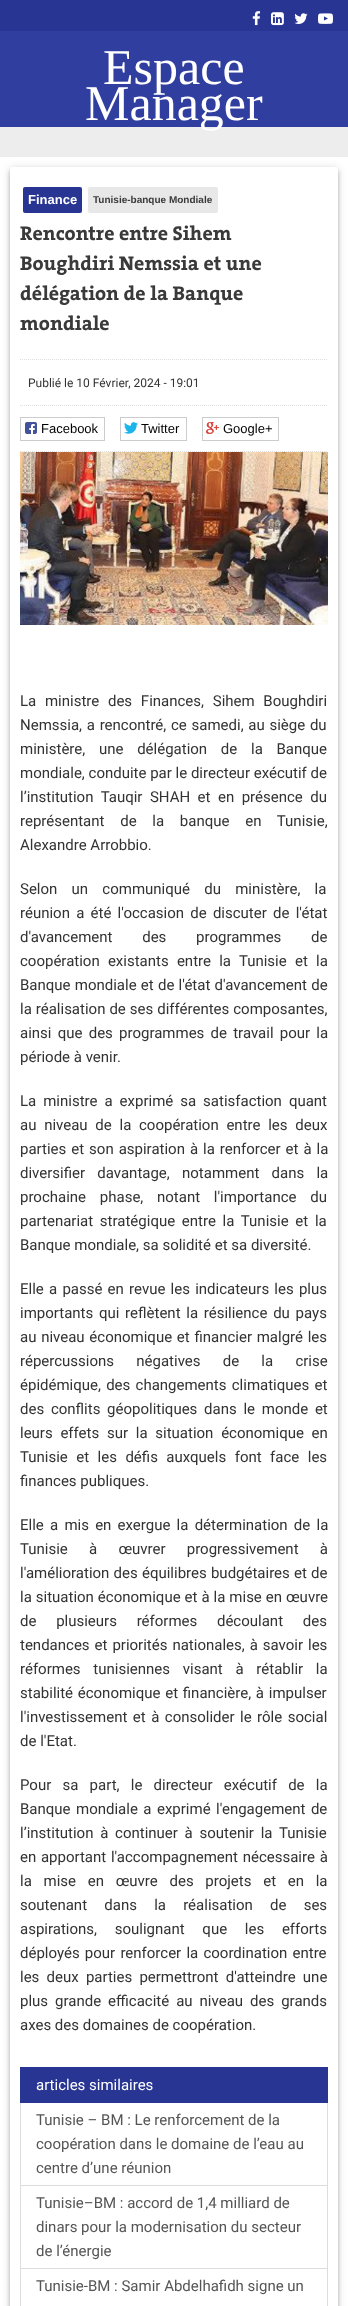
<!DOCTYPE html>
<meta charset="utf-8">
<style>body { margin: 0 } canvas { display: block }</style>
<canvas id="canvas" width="348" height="2306"></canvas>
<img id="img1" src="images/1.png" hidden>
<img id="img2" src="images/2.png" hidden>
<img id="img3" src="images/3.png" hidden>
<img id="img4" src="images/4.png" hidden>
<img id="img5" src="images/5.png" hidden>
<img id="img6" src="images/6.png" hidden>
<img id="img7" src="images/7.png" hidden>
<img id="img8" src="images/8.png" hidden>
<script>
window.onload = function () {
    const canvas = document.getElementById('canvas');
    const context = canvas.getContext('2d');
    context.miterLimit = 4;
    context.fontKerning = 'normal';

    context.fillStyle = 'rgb(255, 255, 255)';
    context.fillRect(0, 0, 348, 2306);
    context.fillStyle = 'rgb(40, 53, 147)';
    context.fillRect(0, 0, 348, 31);
    context.drawImage(document.getElementById('img1'), 252, 11, 9, 15);
    context.drawImage(document.getElementById('img2'), 271, 12, 13, 14);
    context.drawImage(document.getElementById('img3'), 294, 13, 14, 11);
    context.drawImage(document.getElementById('img4'), 318, 13, 15, 11);
    context.fillStyle = 'rgb(48, 63, 159)';
    context.fillRect(0, 31, 348, 96);
    context.fillStyle = 'rgb(237, 237, 237)';
    context.fillRect(0, 127, 348, 30);
    context.fillStyle = 'rgba(0, 0, 0, 0.2)';
    context.filter = 'blur(2px)';
    context.beginPath();
    context.roundRect(11, 170, 326, 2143, 1);
    context.fill();
    context.filter = 'none';
    context.fillStyle = 'rgba(0, 0, 0, 0.12)';
    context.filter = 'blur(5px)';
    context.beginPath();
    context.roundRect(10, 168, 328, 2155, 2);
    context.fill();
    context.filter = 'none';
    context.fillStyle = 'rgba(0, 0, 0, 0.14)';
    context.filter = 'blur(2.5px)';
    context.beginPath();
    context.roundRect(10, 171, 328, 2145, 2);
    context.fill();
    context.filter = 'none';
    context.fillStyle = 'rgb(255, 255, 255)';
    context.beginPath();
    context.roundRect(10, 167, 328, 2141, 2);
    context.fill();
    context.fillStyle = 'rgb(40, 53, 147)';
    context.beginPath();
    context.roundRect(23, 187, 59, 26, 2);
    context.fill();
    context.fillStyle = 'rgb(232, 232, 232)';
    context.beginPath();
    context.roundRect(88, 187, 130, 26, 2);
    context.fill();
    context.beginPath();
    context.moveTo(20, 359.5);
    context.lineTo(328, 359.5);
    context.strokeStyle = 'rgb(223, 223, 223)';
    context.setLineDash([1, 1]);
    context.stroke();
    context.beginPath();
    context.moveTo(20, 405.5);
    context.lineTo(328, 405.5);
    context.stroke();
    context.beginPath();
    context.moveTo(20, 451.5);
    context.lineTo(328, 451.5);
    context.stroke();
    context.strokeStyle = 'rgb(204, 204, 204)';
    context.setLineDash([]);
    context.strokeRect(20.5, 417.5, 84, 23);
    context.drawImage(document.getElementById('img5'), 25, 422, 12, 12);
    context.strokeRect(120.5, 417.5, 66, 23);
    context.drawImage(document.getElementById('img6'), 124, 422, 14, 12);
    context.strokeRect(202.5, 417.5, 76, 23);
    context.drawImage(document.getElementById('img7'), 206, 422, 13, 12);
    context.drawImage(document.getElementById('img8'), 20, 452, 308, 173);
    context.strokeStyle = 'rgb(221, 221, 221)';
    context.strokeRect(20.5, 2102.5, 307, 83);
    context.fillStyle = 'rgb(40, 53, 147)';
    context.fillRect(20, 2067, 308, 36);
    context.strokeRect(20.5, 2185.5, 307, 83);
    context.strokeRect(20.5, 2268.5, 307, 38);
    context.font = '50px Liberation Serif';
    context.fillStyle = 'rgb(255, 255, 255)';
    context.fillText('Espace', 103, 84);
    context.fillText('Manager', 85, 120);
    context.font = 'bold 13px Liberation Sans';
    context.fillText('Finance', 28, 204);
    context.font = 'bold 10px Liberation Sans';
    context.fillStyle = 'rgb(58, 58, 58)';
    context.fillText('Tunisie-banque Mondiale', 93, 203);
    context.font = 'bold 20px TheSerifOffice';
    context.fillText('Rencontre entre Sihem', 20, 240);
    context.fillText('Boughdiri Nemssia et une', 20, 270);
    context.fillText('délégation de la Banque', 20, 300);
    context.fillText('mondiale', 20, 330);
    context.font = '12px Roboto';
    context.fillStyle = 'rgb(51, 51, 51)';
    context.fillText('Publié le 10 Février, 2024 - 19:01', 28, 387);
    context.font = '13px Liberation Sans';
    context.fillStyle = 'rgb(0, 0, 0)';
    context.fillText('Facebook', 41, 433);
    context.fillText('Twitter', 141, 433);
    context.fillText('Google+', 223, 433);
    context.wordSpacing = '5px';
    context.font = '15px Roboto';
    context.fillStyle = 'rgb(51, 51, 51)';
    context.fillText('La ministre des Finances, Sihem Boughdiri', 20, 706);
    context.wordSpacing = '1px';
    context.fillText('Nemssia, a rencontré, ce samedi, au siège du', 20, 730);
    context.wordSpacing = '10px';
    context.fillText('ministère, une délégation de la Banque', 20, 754);
    context.wordSpacing = '0px';
    context.fillText('mondiale, conduite par le directeur exécutif de', 20, 778);
    context.wordSpacing = '3.75px';
    context.fillText('l’institution Tauqir SHAH et en présence du', 20, 802);
    context.wordSpacing = '12px';
    context.fillText('représentant de la banque en Tunisie,', 20, 826);
    context.wordSpacing = '0px';
    context.fillText('Alexandre Arrobbio.', 20, 850);
    context.wordSpacing = '10.5px';
    context.fillText('Selon un communiqué du ministère, la', 20, 894);
    context.wordSpacing = '2.5px';
    context.fillText('réunion a été l\'occasion de discuter de l\'état', 20, 918);
    context.wordSpacing = '26px';
    context.fillText('d\'avancement des programmes de', 20, 942);
    context.wordSpacing = '4.5px';
    context.fillText('coopération existants entre la Tunisie et la', 20, 966);
    context.wordSpacing = '0.5px';
    context.fillText('Banque mondiale et de l\'état d\'avancement de', 20, 990);
    context.wordSpacing = '0.25px';
    context.fillText('la réalisation de ses différentes composantes,', 20, 1014);
    context.wordSpacing = '2.5px';
    context.fillText('ainsi que des programmes de travail pour la', 20, 1038);
    context.wordSpacing = '0px';
    context.fillText('période à venir.', 20, 1062);
    context.wordSpacing = '3.25px';
    context.fillText('La ministre a exprimé sa satisfaction quant', 20, 1106);
    context.wordSpacing = '4px';
    context.fillText('au niveau de la coopération entre les deux', 20, 1130);
    context.wordSpacing = '1.25px';
    context.fillText('parties et son aspiration à la renforcer et à la', 20, 1154);
    context.wordSpacing = '8.5px';
    context.fillText('diversifier davantage, notamment dans la', 20, 1178);
    context.wordSpacing = '10px';
    context.fillText('prochaine phase, notant l\'importance du', 20, 1202);
    context.wordSpacing = '3px';
    context.fillText('partenariat stratégique entre la Tunisie et la', 20, 1226);
    context.wordSpacing = '0px';
    context.fillText('Banque mondiale, sa solidité et sa diversité.', 20, 1250);
    context.wordSpacing = '1.5px';
    context.fillText('Elle a passé en revue les indicateurs les plus', 20, 1294);
    context.wordSpacing = '2px';
    context.fillText('importants qui reflètent la résilience du pays', 20, 1318);
    context.wordSpacing = '1px';
    context.fillText('au niveau économique et financier malgré les', 20, 1342);
    context.wordSpacing = '18.5px';
    context.fillText('répercussions négatives de la crise', 20, 1366);
    context.wordSpacing = '1.5px';
    context.fillText('épidémique, des changements climatiques et', 20, 1390);
    context.wordSpacing = '3px';
    context.fillText('des conflits géopolitiques dans le monde et', 20, 1414);
    context.wordSpacing = '4px';
    context.fillText('leurs effets sur la situation économique en', 20, 1438);
    context.wordSpacing = '4.75px';
    context.fillText('Tunisie et les défis auxquels font face les', 20, 1462);
    context.wordSpacing = '0px';
    context.fillText('finances publiques.', 20, 1486);
    context.wordSpacing = '2.5px';
    context.fillText('Elle a mis en exergue la détermination de la', 20, 1530);
    context.wordSpacing = '17.5px';
    context.fillText('Tunisie à œuvrer progressivement à', 20, 1554);
    context.wordSpacing = '0.5px';
    context.fillText('l\'amélioration des équilibres budgétaires et de', 20, 1578);
    context.wordSpacing = '0.25px';
    context.fillText('la situation économique et à la mise en œuvre', 20, 1602);
    context.wordSpacing = '16px';
    context.fillText('de plusieurs réformes découlant des', 20, 1626);
    context.wordSpacing = '1.25px';
    context.fillText('tendances et priorités nationales, à savoir les', 20, 1650);
    context.wordSpacing = '9px';
    context.fillText('réformes tunisiennes visant à rétablir la', 20, 1674);
    context.wordSpacing = '1px';
    context.fillText('stabilité économique et financière, à impulser', 20, 1698);
    context.wordSpacing = '1.75px';
    context.fillText('l\'investissement et à consolider le rôle social', 20, 1722);
    context.wordSpacing = '0px';
    context.fillText('de l\'Etat.', 20, 1746);
    context.wordSpacing = '7.5px';
    context.fillText('Pour sa part, le directeur exécutif de la', 20, 1790);
    context.wordSpacing = '1.75px';
    context.fillText('Banque mondiale a exprimé l\'engagement de', 20, 1814);
    context.wordSpacing = '3px';
    context.fillText('l’institution à continuer à soutenir la Tunisie', 20, 1838);
    context.wordSpacing = '1px';
    context.fillText('en apportant l\'accompagnement nécessaire à', 20, 1862);
    context.wordSpacing = '8px';
    context.fillText('la mise en œuvre des projets et en la', 20, 1886);
    context.wordSpacing = '13.5px';
    context.fillText('soutenant dans la réalisation de ses', 20, 1910);
    context.wordSpacing = '14px';
    context.fillText('aspirations, soulignant que les efforts', 20, 1934);
    context.wordSpacing = '1.5px';
    context.fillText('déployés pour renforcer la coordination entre', 20, 1958);
    context.wordSpacing = '3.5px';
    context.fillText('les deux parties permettront d\'atteindre une', 20, 1982);
    context.wordSpacing = '3.25px';
    context.fillText('plus grande efficacité au niveau des grands', 20, 2006);
    context.wordSpacing = '0px';
    context.fillText('axes des domaines de coopération.', 20, 2030);
    context.fillStyle = 'rgb(255, 255, 255)';
    context.fillText('articles similaires', 36, 2090);
    context.fillStyle = 'rgb(85, 85, 85)';
    context.fillText('Tunisie – BM : Le renforcement de la', 36, 2125);
    context.fillText('coopération dans le domaine de l’eau au', 36, 2149);
    context.fillText('centre d’une réunion', 36, 2173);
    context.fillText('Tunisie–BM : accord de 1,4 milliard de', 36, 2208);
    context.fillText('dinars pour la modernisation du secteur', 36, 2232);
    context.fillText('de l’énergie', 36, 2256);
    context.fillText('Tunisie-BM : Samir Abdelhafidh signe un', 36, 2291);
};
</script>
